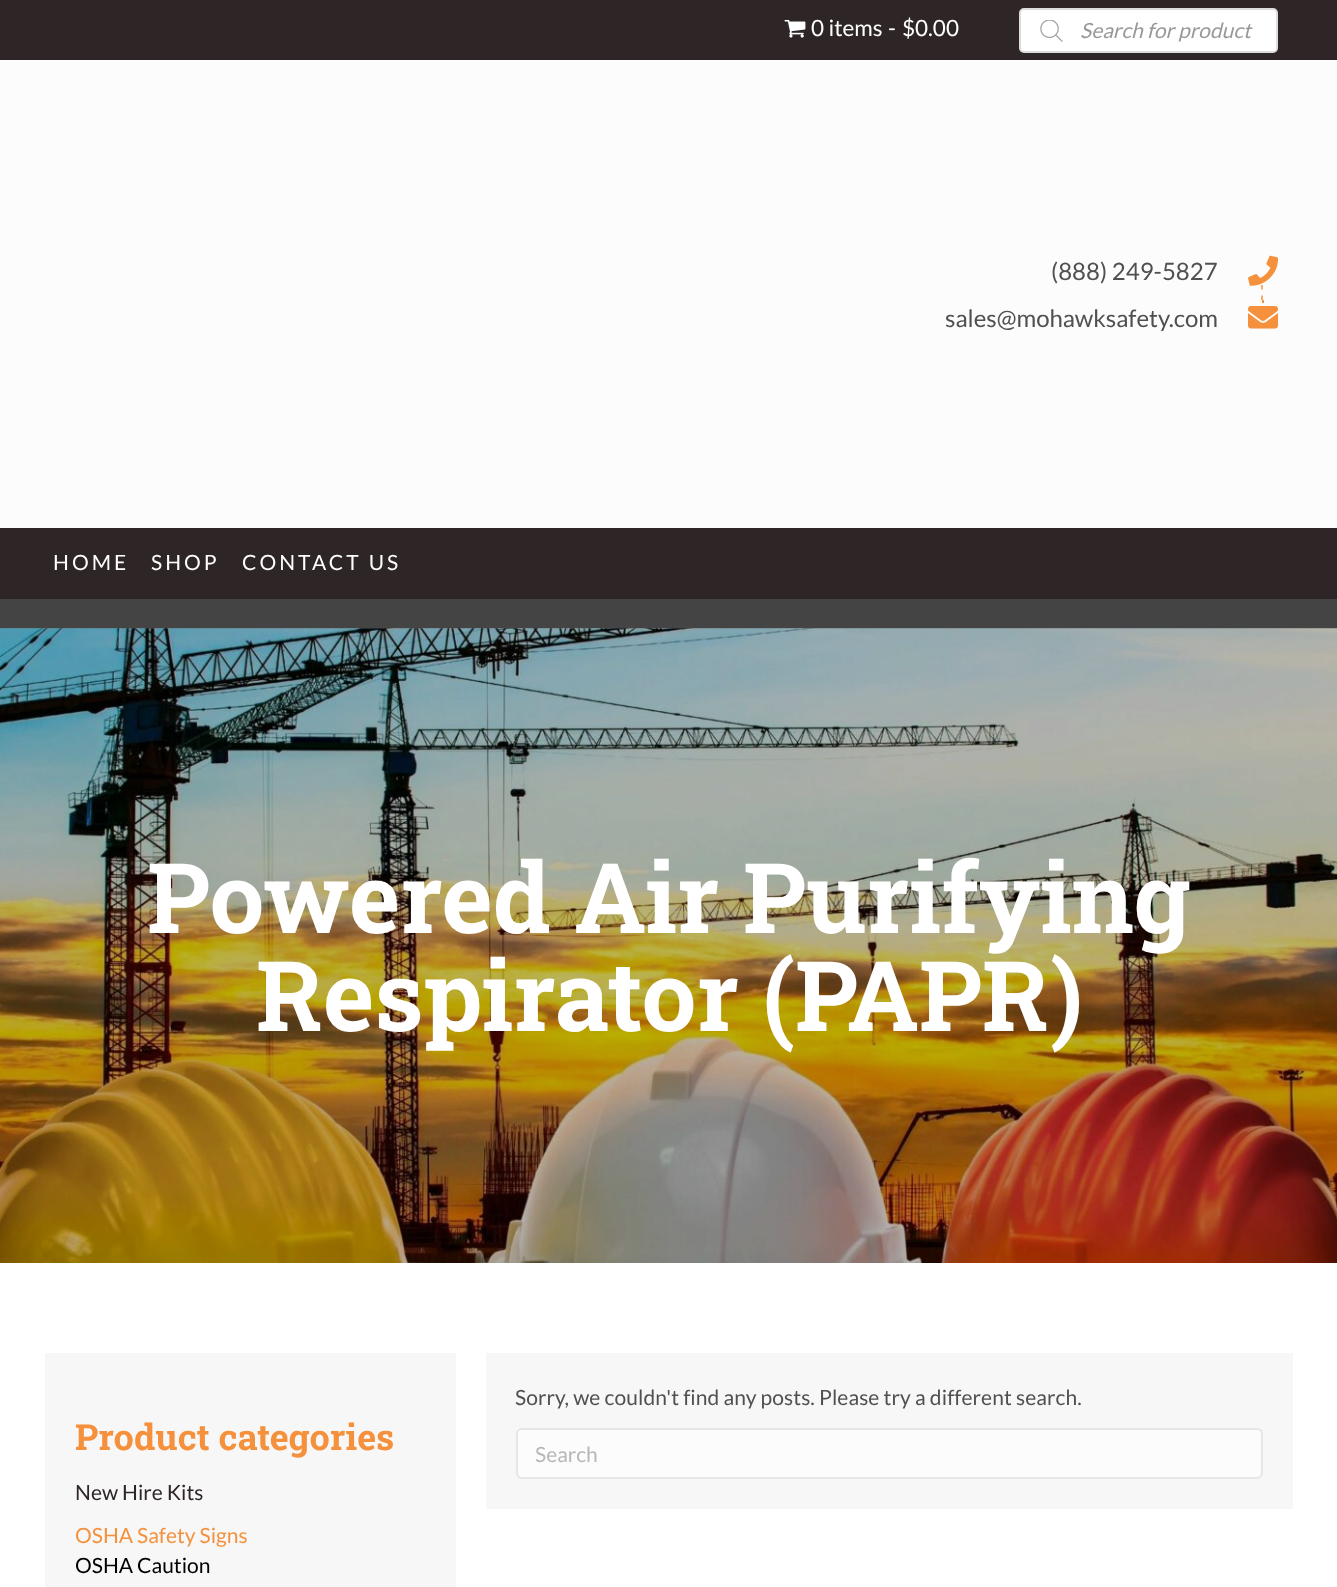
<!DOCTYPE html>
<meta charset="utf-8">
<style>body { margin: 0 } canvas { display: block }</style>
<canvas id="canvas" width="1337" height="1587"></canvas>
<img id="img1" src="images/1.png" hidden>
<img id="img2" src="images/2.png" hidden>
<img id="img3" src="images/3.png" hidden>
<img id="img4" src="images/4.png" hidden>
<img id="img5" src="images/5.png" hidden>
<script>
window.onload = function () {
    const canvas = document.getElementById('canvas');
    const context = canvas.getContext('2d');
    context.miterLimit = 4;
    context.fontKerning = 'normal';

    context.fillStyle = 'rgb(255, 255, 255)';
    context.fillRect(0, 0, 1337, 1587);
    context.fillStyle = 'rgb(45, 37, 38)';
    context.fillRect(0, 0, 1337, 60);
    context.drawImage(document.getElementById('img1'), 784, 19, 22, 19);
    context.fillStyle = 'rgb(255, 255, 255)';
    context.beginPath();
    context.roundRect(1020, 9, 257, 43, 4);
    context.fill();
    context.strokeStyle = 'rgb(221, 221, 221)';
    context.lineWidth = 2;
    context.stroke();
    context.drawImage(document.getElementById('img2'), 1040, 20, 23, 22);
    context.fillStyle = 'rgb(252, 252, 252)';
    context.fillRect(0, 60, 1337, 468);
    context.beginPath();
    context.moveTo(1262, 285);
    context.lineTo(1262, 289.5);
    context.moveTo(1262, 295.5);
    context.lineTo(1262, 300);
    context.strokeStyle = 'rgb(245, 145, 61)';
    context.lineWidth = 1.5;
    context.stroke();
    context.drawImage(document.getElementById('img3'), 1248, 255, 31, 31);
    context.fillStyle = 'rgb(245, 145, 61)';
    context.fillRect(1262, 300, 2, 3);
    context.drawImage(document.getElementById('img4'), 1248, 306, 30, 23);
    context.fillStyle = 'rgb(45, 37, 38)';
    context.fillRect(0, 528, 1337, 71);
    context.fillStyle = 'rgb(68, 68, 68)';
    context.fillRect(0, 599, 1337, 30);
    context.drawImage(document.getElementById('img5'), 0, 628, 1337, 635);
    context.fillStyle = 'rgb(247, 247, 247)';
    context.fillRect(45, 1353, 411, 234);
    context.fillRect(486, 1353, 807, 156);
    context.fillStyle = 'rgb(252, 252, 252)';
    context.beginPath();
    context.roundRect(517, 1429, 745, 49, 5);
    context.fill();
    context.strokeStyle = 'rgb(230, 230, 230)';
    context.lineWidth = 2;
    context.stroke();
    context.font = '22.5px Lato';
    context.fillStyle = 'rgb(255, 255, 255)';
    context.fillText('0 items', 811, 36);
    context.fillText('-', 888, 36);
    context.fillText('$0.00', 902, 36);
    context.font = 'italic 21px Lato';
    context.fillStyle = 'rgb(153, 153, 153)';
    context.fillText('Search for product', 1080, 38);
    context.font = '24px Lato';
    context.fillStyle = 'rgb(80, 80, 80)';
    context.fillText('(888) 249-5827', 1051, 280);
    context.fillText('sales@mohawksafety.com', 945, 327);
    context.letterSpacing = '3px';
    context.font = '21px Lato';
    context.fillStyle = 'rgb(255, 255, 255)';
    context.fillText('HOME', 53, 570);
    context.fillText('SHOP', 151, 570);
    context.fillText('CONTACT US', 242, 570);
    context.letterSpacing = '0px';
    context.font = 'bold 97.5px Roboto Slab';
    context.fillText('Powered Air Purifying', 147, 933);
    context.fillText('Respirator (PAPR)', 256, 1031);
    context.font = 'bold 36px Roboto Slab';
    context.fillStyle = 'rgb(245, 145, 61)';
    context.fillText('Product categories', 75, 1450);
    context.font = '21px Lato';
    context.fillStyle = 'rgb(45, 37, 38)';
    context.fillText('New Hire Kits', 75, 1500);
    context.fillStyle = 'rgb(245, 145, 61)';
    context.fillText('OSHA Safety Signs', 75, 1543);
    context.fillStyle = 'rgb(0, 0, 0)';
    context.fillText('OSHA Caution', 75, 1573);
    context.letterSpacing = '0.08px';
    context.fillStyle = 'rgb(80, 80, 80)';
    context.fillText('Sorry, we couldn\'t find any posts. Please try a different search.', 515, 1405);
    context.letterSpacing = '0px';
    context.fillStyle = 'rgb(183, 183, 183)';
    context.fillText('Search', 535, 1462);
};
</script>
